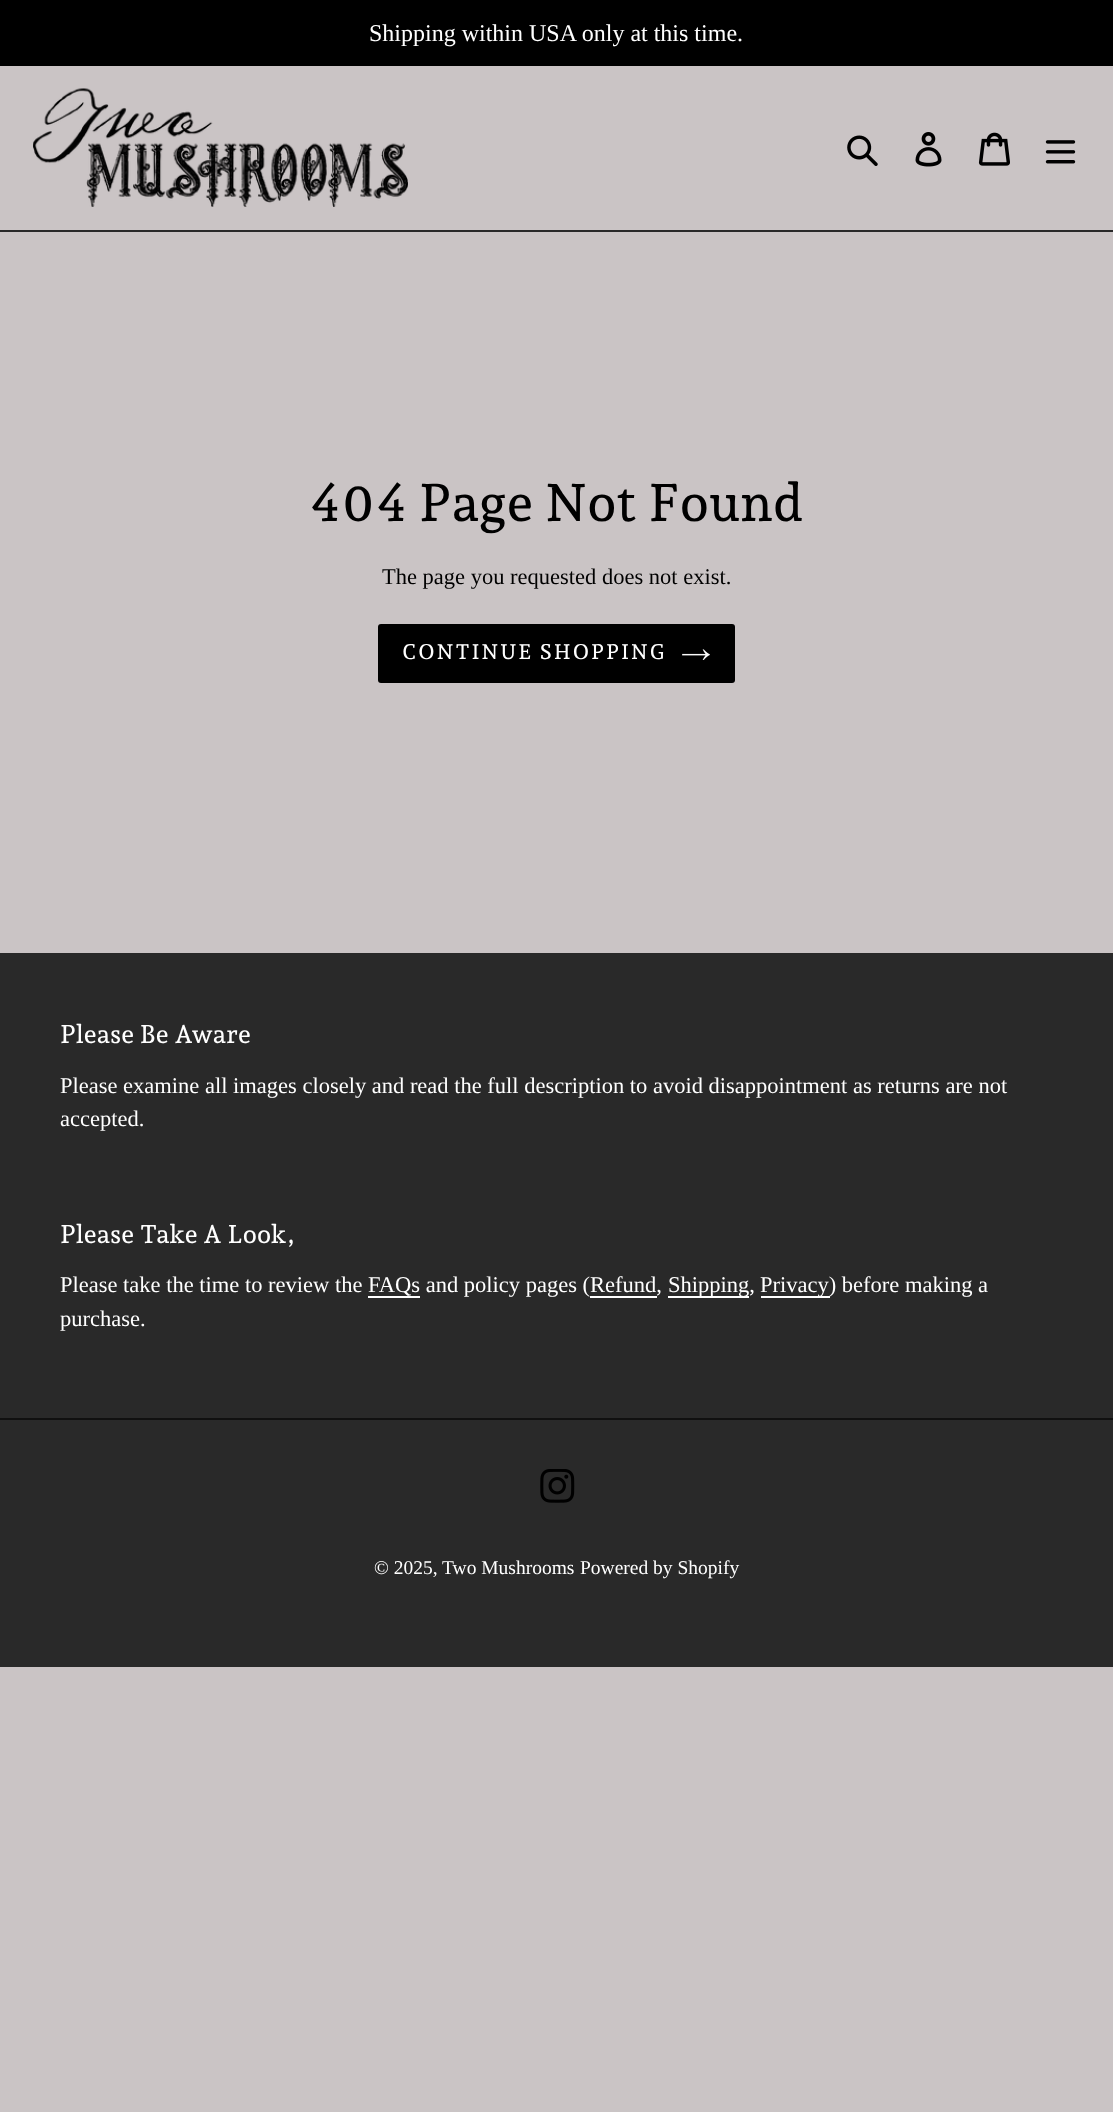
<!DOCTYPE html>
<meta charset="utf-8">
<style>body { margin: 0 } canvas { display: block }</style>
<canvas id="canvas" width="1113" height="2112"></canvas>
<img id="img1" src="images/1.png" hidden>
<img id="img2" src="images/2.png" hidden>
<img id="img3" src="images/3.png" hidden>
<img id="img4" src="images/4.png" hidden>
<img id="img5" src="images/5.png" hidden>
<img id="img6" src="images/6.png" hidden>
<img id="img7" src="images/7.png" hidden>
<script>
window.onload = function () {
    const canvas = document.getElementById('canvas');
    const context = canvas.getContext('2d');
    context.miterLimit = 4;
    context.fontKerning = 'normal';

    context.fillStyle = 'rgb(202, 196, 197)';
    context.fillRect(0, 0, 1113, 2112);
    context.fillStyle = 'rgb(0, 0, 0)';
    context.fillRect(0, 0, 1113, 66);
    context.fillStyle = 'rgb(41, 41, 41)';
    context.fillRect(0, 230, 1113, 2);
    context.drawImage(document.getElementById('img1'), 33, 88, 375, 119);
    context.drawImage(document.getElementById('img2'), 847, 135, 31, 31);
    context.drawImage(document.getElementById('img3'), 915, 132, 27, 35);
    context.drawImage(document.getElementById('img4'), 978, 132, 32, 34);
    context.drawImage(document.getElementById('img5'), 1045, 140, 31, 24);
    context.fillStyle = 'rgb(0, 0, 0)';
    context.beginPath();
    context.roundRect(378, 624, 357, 59, 3);
    context.fill();
    context.drawImage(document.getElementById('img6'), 682, 649, 28, 11);
    context.fillStyle = 'rgb(41, 41, 41)';
    context.fillRect(0, 953, 1113, 714);
    context.fillStyle = 'rgb(255, 255, 255)';
    context.fillRect(668, 1296, 81, 2);
    context.fillRect(761, 1296, 69, 2);
    context.fillRect(368, 1296, 52, 2);
    context.fillRect(590, 1296, 67, 2);
    context.fillStyle = 'rgb(16, 16, 16)';
    context.fillRect(0, 1418, 1113, 2);
    context.drawImage(document.getElementById('img7'), 540, 1469, 35, 34);
    context.font = '24px Liberation Serif';
    context.fillStyle = 'rgb(255, 255, 255)';
    context.fillText('Shipping within USA only at this time.', 369, 41);
    context.font = '500 52.5px Andada Pro';
    context.fillStyle = 'rgb(0, 0, 0)';
    context.fillText('404 Page Not Found', 309, 521);
    context.font = '22.5px Liberation Serif';
    context.fillText('The page you requested does not exist.', 382, 584);
    context.letterSpacing = '1.7px';
    context.font = '500 21px Andada Pro';
    context.fillStyle = 'rgb(255, 255, 255)';
    context.fillText('CONTINUE SHOPPING', 402, 659);
    context.letterSpacing = '0px';
    context.font = '500 25.5px Andada Pro';
    context.fillText('Please Be Aware', 60, 1043);
    context.font = '22.5px Liberation Serif';
    context.fillText('Please examine all images closely and read the full description to avoid disappointment as returns are not', 60, 1093);
    context.fillText('accepted.', 60, 1126);
    context.font = '500 25.5px Andada Pro';
    context.fillText('Please Take A Look,', 60, 1243);
    context.font = '22.5px Liberation Serif';
    context.fillText('Please take the time to review the FAQs and policy pages (Refund,', 60, 1292);
    context.fillText('Shipping,', 668, 1292);
    context.fillText('Privacy) before making a', 760, 1292);
    context.fillText('purchase.', 60, 1326);
    context.font = '19.5px Liberation Serif';
    context.fillText('© 2025,', 374, 1574);
    context.fillText('Two Mushrooms', 442, 1574);
    context.fillText('Powered by Shopify', 580, 1574);
};
</script>
